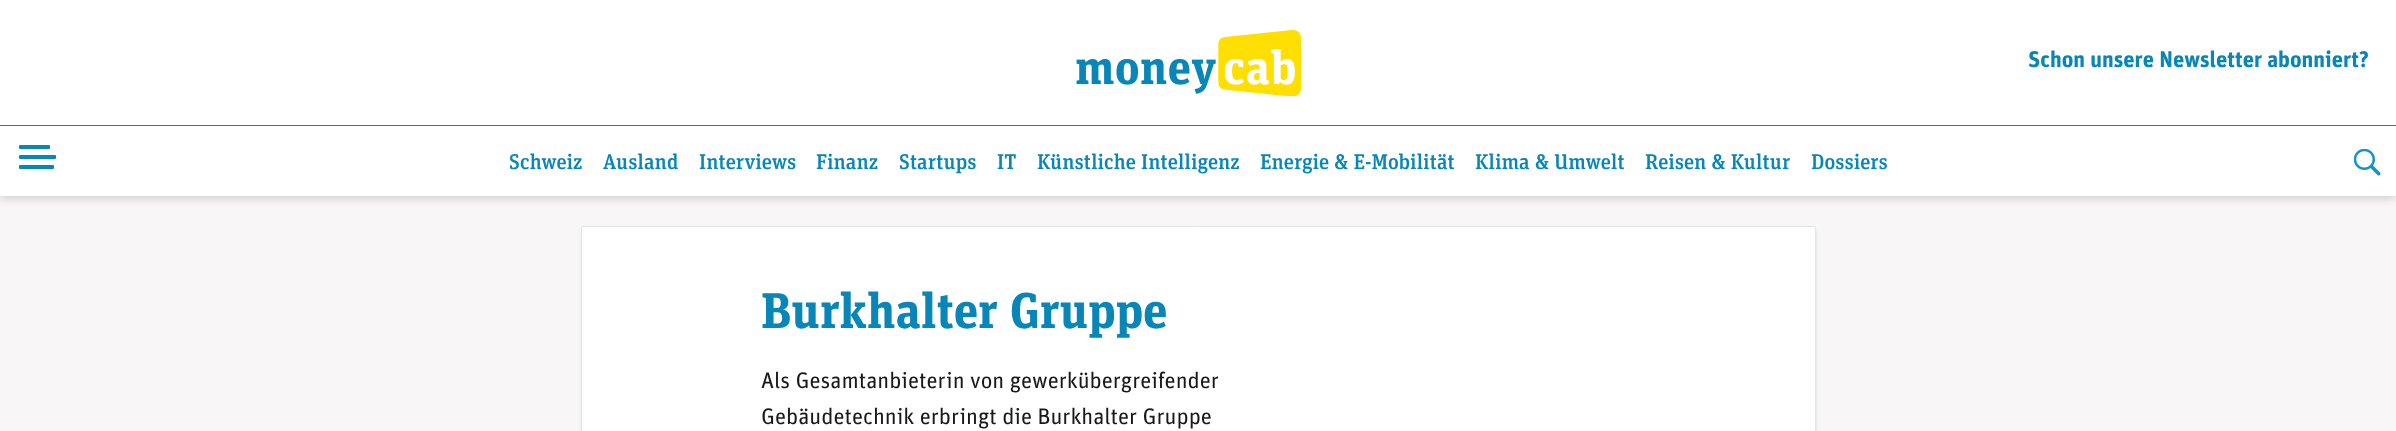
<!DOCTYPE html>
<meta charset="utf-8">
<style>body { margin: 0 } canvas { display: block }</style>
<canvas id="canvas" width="2396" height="431"></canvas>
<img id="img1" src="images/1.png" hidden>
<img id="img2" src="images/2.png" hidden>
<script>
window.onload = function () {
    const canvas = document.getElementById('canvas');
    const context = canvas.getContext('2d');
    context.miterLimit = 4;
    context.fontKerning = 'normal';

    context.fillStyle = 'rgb(249, 246, 247)';
    context.fillRect(0, 0, 2396, 431);
    context.fillStyle = 'rgba(0, 0, 0, 0.15)';
    context.filter = 'blur(4px)';
    context.beginPath();
    context.rect(0, 3, 2396, 196);
    context.fill();
    context.filter = 'none';
    context.fillStyle = 'rgb(255, 255, 255)';
    context.fillRect(0, 0, 2396, 196);
    context.fillStyle = 'rgb(9, 134, 184)';
    context.fillRect(0, 125, 2396, 1);
    context.drawImage(document.getElementById('img1'), 1076, 30, 225, 66);
    context.beginPath();
    context.roundRect(19, 155, 37, 4, 1);
    context.fill();
    context.beginPath();
    context.roundRect(19, 145, 31, 4, 1);
    context.fill();
    context.beginPath();
    context.roundRect(19, 165, 35, 4, 1);
    context.fill();
    context.drawImage(document.getElementById('img2'), 2354, 149, 27, 27);
    context.fillStyle = 'rgba(0, 0, 0, 0.26)';
    context.filter = 'blur(2.5px)';
    context.beginPath();
    context.rect(584, 231, 1230, 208);
    context.fill();
    context.filter = 'none';
    context.fillStyle = 'rgb(255, 255, 255)';
    context.beginPath();
    context.rect(581.5, 226.5, 1234, 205);
    context.fill();
    context.strokeStyle = 'rgb(228, 228, 228)';
    context.stroke();
    context.font = 'bold 22.5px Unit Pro';
    context.fillStyle = 'rgb(9, 134, 184)';
    context.fillText('Schon unsere Newsletter abonniert?', 2028, 67);
    context.font = '500 21.25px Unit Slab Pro';
    context.fillText('Schweiz', 509, 169);
    context.fillText('Ausland', 603, 169);
    context.fillText('Interviews', 699, 169);
    context.fillText('Finanz', 816, 169);
    context.fillText('Startups', 899, 169);
    context.fillText('IT', 997, 169);
    context.fillText('Künstliche Intelligenz', 1037, 169);
    context.fillText('Energie & E-Mobilität', 1260, 169);
    context.fillText('Klima & Umwelt', 1475, 169);
    context.fillText('Reisen & Kultur', 1645, 169);
    context.fillText('Dossiers', 1811, 169);
    context.font = 'bold 50px Unit Slab Pro';
    context.fillText('Burkhalter Gruppe', 761, 328);
    context.font = '22.5px Unit Pro';
    context.fillStyle = 'rgb(25, 25, 25)';
    context.fillText('Als Gesamtanbieterin von gewerkübergreifender', 761, 388);
    context.fillText('Gebäudetechnik erbringt die Burkhalter Gruppe', 761, 424);
};
</script>
